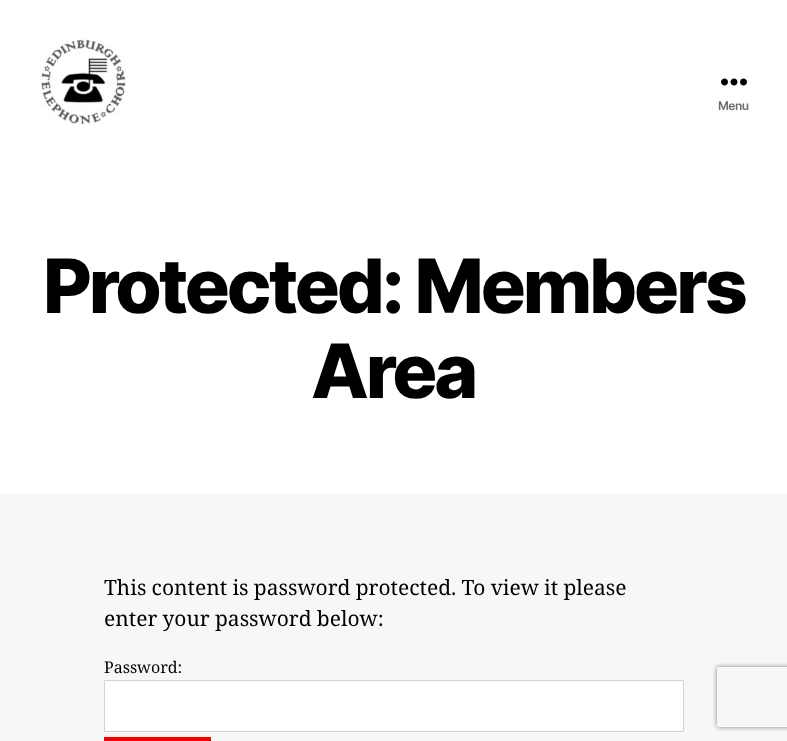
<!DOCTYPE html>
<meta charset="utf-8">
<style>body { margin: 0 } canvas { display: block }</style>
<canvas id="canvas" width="787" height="741"></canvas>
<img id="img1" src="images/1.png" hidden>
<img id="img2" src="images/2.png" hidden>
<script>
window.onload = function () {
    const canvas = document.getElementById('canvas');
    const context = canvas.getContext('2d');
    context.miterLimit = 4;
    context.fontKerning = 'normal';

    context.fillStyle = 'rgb(247, 247, 247)';
    context.fillRect(0, 0, 787, 741);
    context.fillStyle = 'rgb(255, 255, 255)';
    context.fillRect(0, 0, 787, 494);
    context.drawImage(document.getElementById('img1'), 40, 38, 87, 87);
    context.drawImage(document.getElementById('img2'), 721, 78, 26, 8);
    context.beginPath();
    context.rect(104.5, 680.5, 579, 51);
    context.fill();
    context.strokeStyle = 'rgb(211, 211, 211)';
    context.stroke();
    context.fillStyle = 'rgb(244, 2, 2)';
    context.fillRect(104, 737, 107, 4);
    context.save();
    context.beginPath();
    context.moveTo(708, 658);
    context.lineTo(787, 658);
    context.lineTo(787, 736);
    context.lineTo(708, 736);
    context.closePath();
    context.moveTo(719, 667);
    context.lineTo(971, 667);
    context.bezierCurveTo(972, 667, 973, 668, 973, 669);
    context.lineTo(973, 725);
    context.bezierCurveTo(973, 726, 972, 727, 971, 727);
    context.lineTo(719, 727);
    context.bezierCurveTo(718, 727, 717, 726, 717, 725);
    context.lineTo(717, 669);
    context.bezierCurveTo(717, 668, 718, 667, 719, 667);
    context.closePath();
    context.clip('evenodd');
    context.fillStyle = 'rgb(128, 128, 128)';
    context.filter = 'blur(2.5px)';
    context.beginPath();
    context.roundRect(717, 667, 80, 60, 2);
    context.fill();
    context.filter = 'none';
    context.restore();
    context.letterSpacing = '-0.5px';
    context.font = '600 12px Inter';
    context.fillStyle = 'rgb(109, 109, 109)';
    context.fillText('Menu', 718, 110);
    context.letterSpacing = '-3.1px';
    context.font = '800 75px Inter';
    context.fillStyle = 'rgb(0, 0, 0)';
    context.fillText('Protected: Members', 43, 313);
    context.fillText('Area', 311, 398);
    context.letterSpacing = '0px';
    context.wordSpacing = '-0.25px';
    context.font = '21px Noto Serif';
    context.fillText('This content is password protected. To view it please', 104, 595);
    context.fillText('enter your password below:', 104, 626);
    context.wordSpacing = '0px';
    context.font = '16px Noto Serif';
    context.fillText('Password:', 104, 673);
};
</script>
